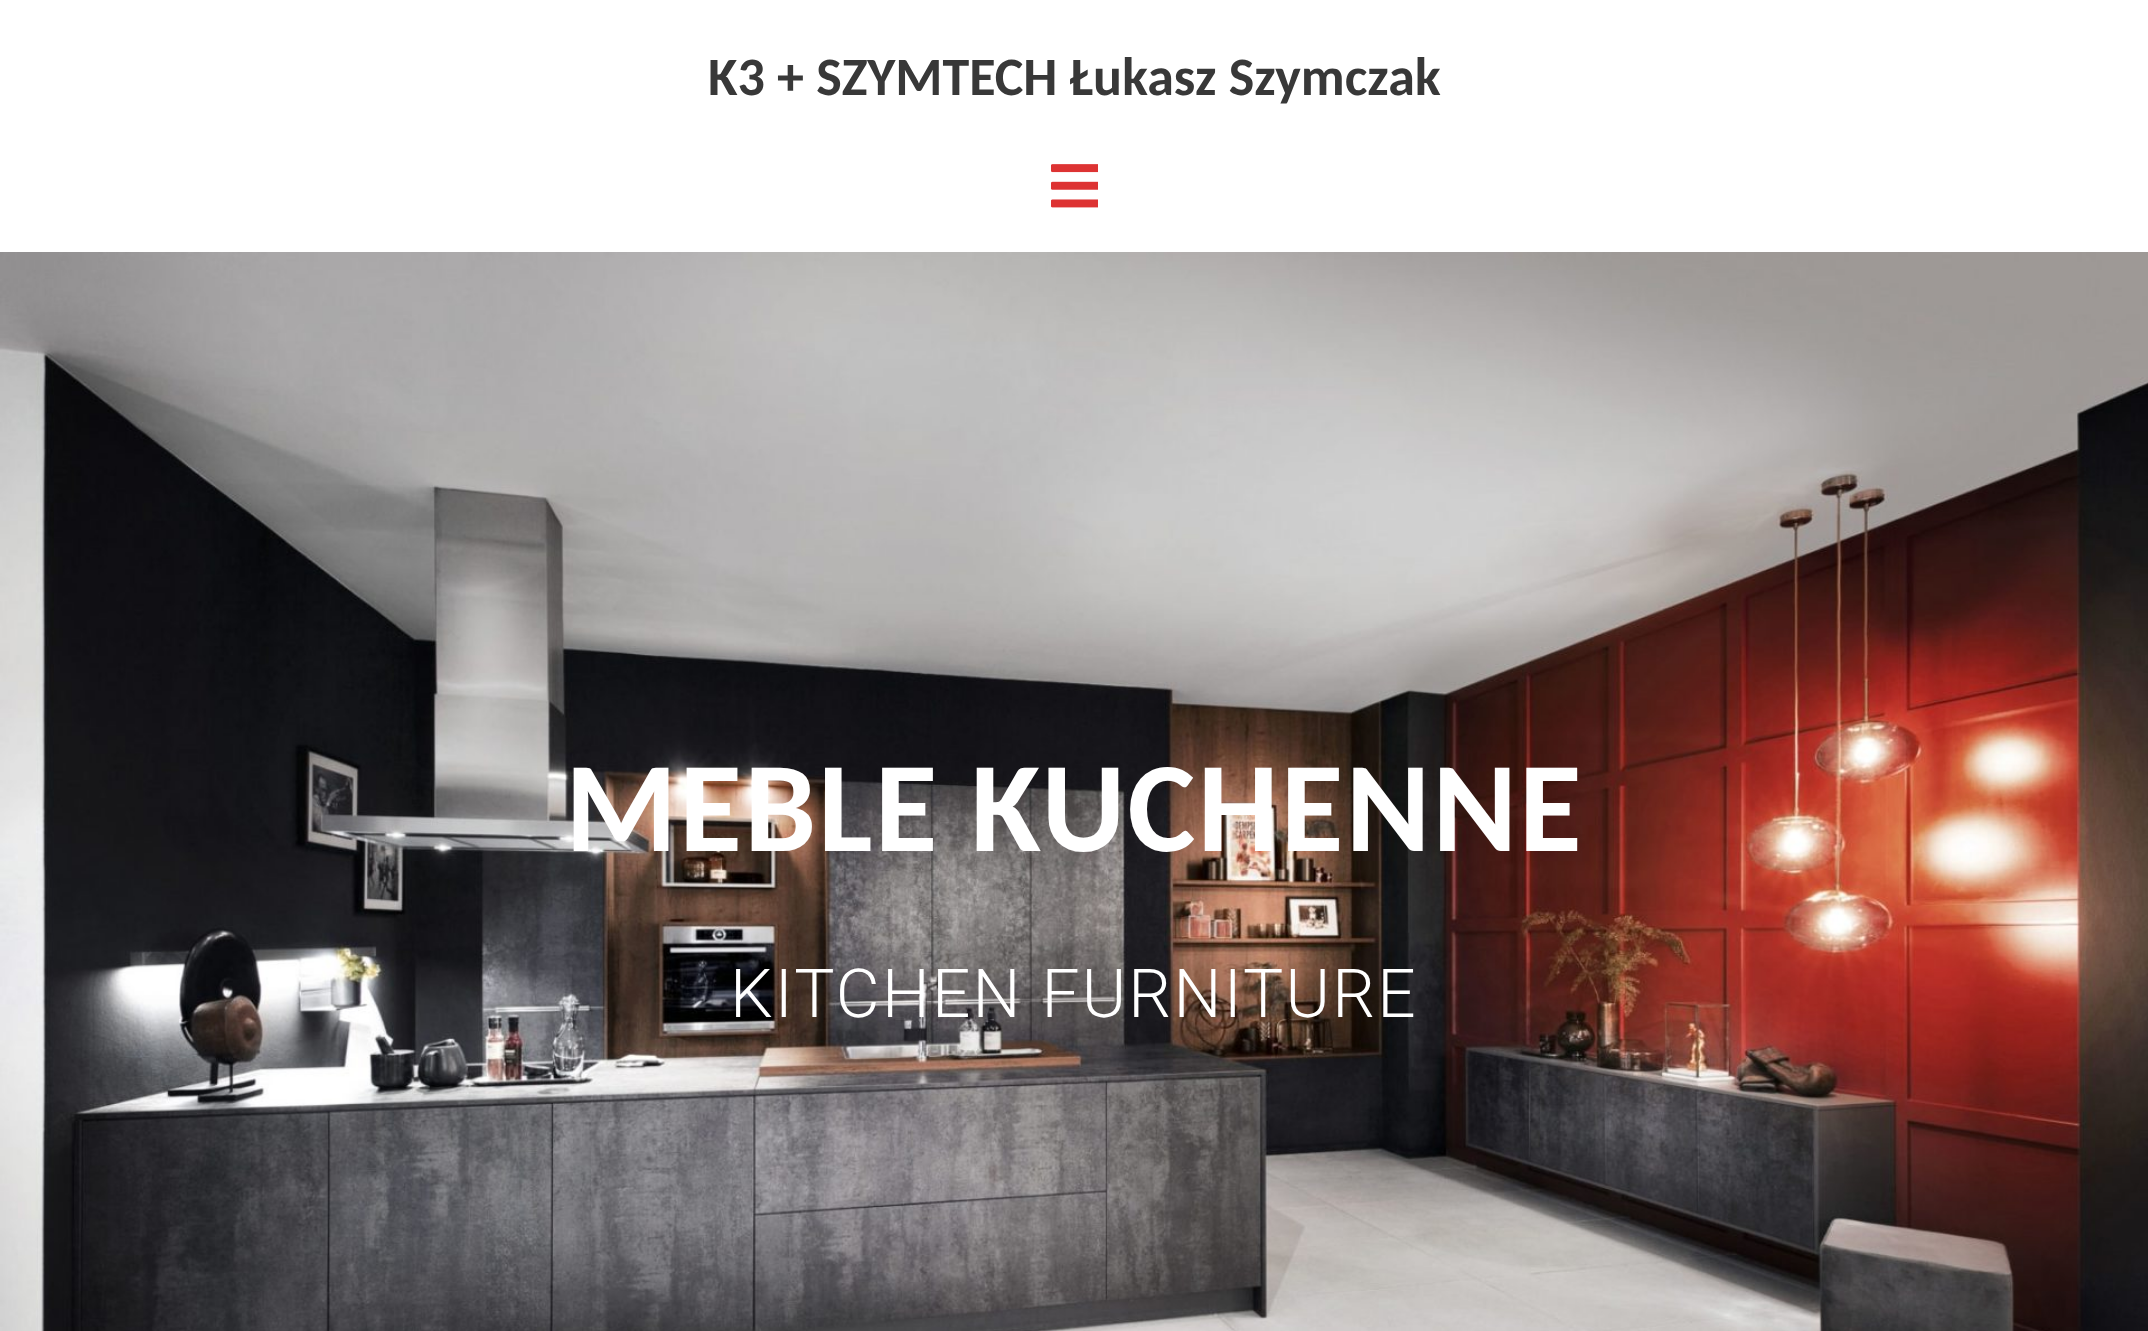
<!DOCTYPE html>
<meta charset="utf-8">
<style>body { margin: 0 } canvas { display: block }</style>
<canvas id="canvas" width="2148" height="1331"></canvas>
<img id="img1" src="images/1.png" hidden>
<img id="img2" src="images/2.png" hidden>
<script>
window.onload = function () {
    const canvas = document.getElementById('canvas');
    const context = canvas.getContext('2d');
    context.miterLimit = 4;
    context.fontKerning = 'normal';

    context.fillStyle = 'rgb(255, 255, 255)';
    context.fillRect(0, 0, 2148, 1331);
    context.drawImage(document.getElementById('img1'), 1051, 164, 47, 44);
    context.drawImage(document.getElementById('img2'), 0, 252, 2148, 1079);
    context.font = 'bold 54px Carlito';
    context.fillStyle = 'rgb(56, 56, 56)';
    context.fillText('K3 + SZYMTECH Łukasz Szymczak', 708, 95);
    context.letterSpacing = '2.25px';
    context.font = 'bold 128.25px Carlito';
    context.fillStyle = 'rgb(255, 255, 255)';
    context.fillText('MEBLE KUCHENNE', 565, 851);
    context.font = '300 67.5px Roboto';
    context.fillText('KITCHEN FURNITURE', 730, 1017);
};
</script>
